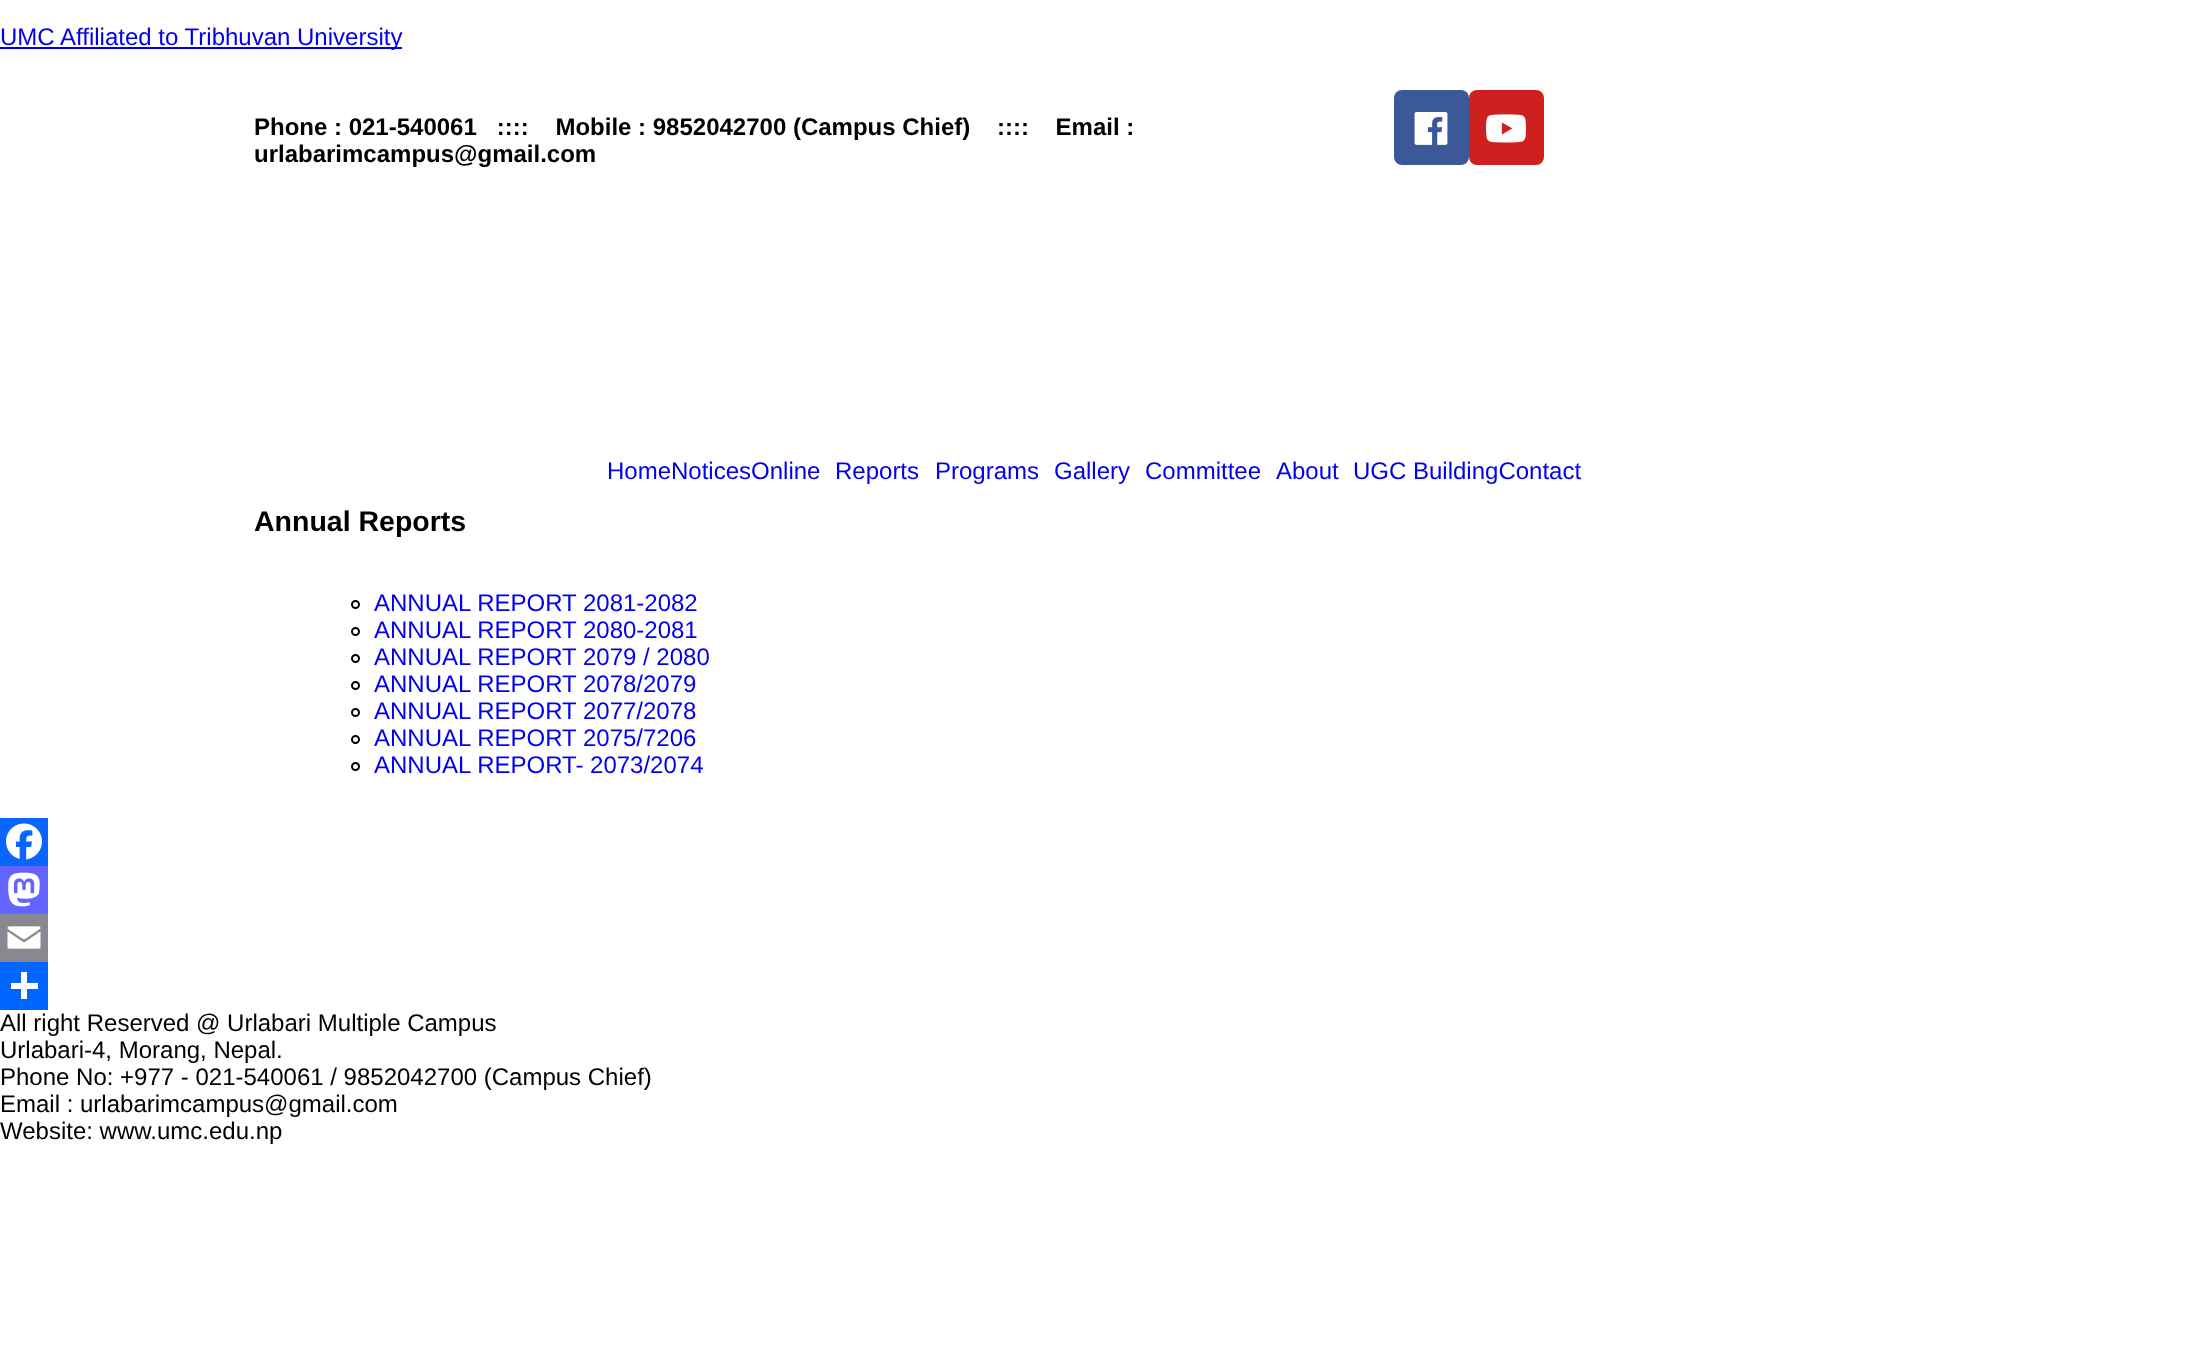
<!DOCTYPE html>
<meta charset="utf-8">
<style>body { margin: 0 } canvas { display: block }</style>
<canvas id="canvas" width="2188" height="1363"></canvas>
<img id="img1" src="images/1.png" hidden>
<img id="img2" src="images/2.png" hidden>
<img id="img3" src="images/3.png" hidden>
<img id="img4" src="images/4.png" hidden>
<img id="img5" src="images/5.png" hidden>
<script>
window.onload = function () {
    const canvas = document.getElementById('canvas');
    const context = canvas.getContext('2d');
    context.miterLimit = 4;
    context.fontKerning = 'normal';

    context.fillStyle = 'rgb(255, 255, 255)';
    context.fillRect(0, 0, 2188, 1363);
    context.fillStyle = 'rgb(0, 0, 238)';
    context.fillRect(0, 47, 402, 2);
    context.fillStyle = 'rgb(59, 89, 152)';
    context.beginPath();
    context.roundRect(1394, 90, 75, 75, 8);
    context.fill();
    context.drawImage(document.getElementById('img1'), 1414, 112, 34, 33);
    context.fillStyle = 'rgb(205, 32, 31)';
    context.beginPath();
    context.roundRect(1469, 90, 75, 75, 8);
    context.fill();
    context.drawImage(document.getElementById('img2'), 1486, 114, 40, 29);
    context.beginPath();
    context.arc(355.5, 604.5, 3.5, 0, 2 * Math.PI);
    context.strokeStyle = 'rgb(0, 0, 0)';
    context.lineWidth = 2;
    context.stroke();
    context.beginPath();
    context.arc(355.5, 631.5, 3.5, 0, 2 * Math.PI);
    context.stroke();
    context.beginPath();
    context.arc(355.5, 658.5, 3.5, 0, 2 * Math.PI);
    context.stroke();
    context.beginPath();
    context.arc(355.5, 685.5, 3.5, 0, 2 * Math.PI);
    context.stroke();
    context.beginPath();
    context.arc(355.5, 712.5, 3.5, 0, 2 * Math.PI);
    context.stroke();
    context.beginPath();
    context.arc(355.5, 739.5, 3.5, 0, 2 * Math.PI);
    context.stroke();
    context.beginPath();
    context.arc(355.5, 766.5, 3.5, 0, 2 * Math.PI);
    context.stroke();
    context.fillStyle = 'rgb(8, 102, 255)';
    context.fillRect(0, 818, 48, 48);
    context.drawImage(document.getElementById('img3'), 6, 823, 36, 37);
    context.fillStyle = 'rgb(99, 100, 255)';
    context.fillRect(0, 866, 48, 48);
    context.drawImage(document.getElementById('img4'), 8, 872, 32, 35);
    context.fillStyle = 'rgb(136, 137, 144)';
    context.fillRect(0, 914, 48, 48);
    context.drawImage(document.getElementById('img5'), 7, 926, 34, 23);
    context.fillStyle = 'rgb(1, 102, 255)';
    context.fillRect(0, 962, 48, 48);
    context.fillStyle = 'rgb(255, 255, 255)';
    context.fillRect(21, 972, 6, 27);
    context.fillRect(11, 983, 27, 6);
    context.font = '24px Liberation Sans';
    context.fillStyle = 'rgb(0, 0, 238)';
    context.fillText('UMC Affiliated to Tribhuvan University', 0, 45);
    context.font = 'bold 24px Liberation Sans';
    context.fillStyle = 'rgb(0, 0, 0)';
    context.fillText('Phone : 021-540061   ::::    Mobile : 9852042700 (Campus Chief)    ::::    Email :', 254, 135);
    context.fillText('urlabarimcampus@gmail.com', 254, 162);
    context.font = '24px Liberation Sans';
    context.fillStyle = 'rgb(0, 0, 238)';
    context.fillText('HomeNoticesOnline', 607, 479);
    context.fillText('Reports', 835, 479);
    context.fillText('Programs', 935, 479);
    context.fillText('Gallery', 1054, 479);
    context.fillText('Committee', 1145, 479);
    context.fillText('About', 1276, 479);
    context.fillText('UGC BuildingContact', 1353, 479);
    context.font = 'bold 28.5px Liberation Sans';
    context.fillStyle = 'rgb(0, 0, 0)';
    context.fillText('Annual Reports', 254, 531);
    context.font = '24px Liberation Sans';
    context.fillStyle = 'rgb(0, 0, 238)';
    context.fillText('ANNUAL REPORT 2081-2082', 374, 611);
    context.fillText('ANNUAL REPORT 2080-2081', 374, 638);
    context.fillText('ANNUAL REPORT 2079 / 2080', 374, 665);
    context.fillText('ANNUAL REPORT 2078/2079', 374, 692);
    context.fillText('ANNUAL REPORT 2077/2078', 374, 719);
    context.fillText('ANNUAL REPORT 2075/7206', 374, 746);
    context.fillText('ANNUAL REPORT- 2073/2074', 374, 773);
    context.fillStyle = 'rgb(0, 0, 0)';
    context.fillText('All right Reserved @ Urlabari Multiple Campus', 0, 1031);
    context.fillText('Urlabari-4, Morang, Nepal.', 0, 1058);
    context.fillText('Phone No: +977 - 021-540061 / 9852042700 (Campus Chief)', 0, 1085);
    context.fillText('Email : urlabarimcampus@gmail.com', 0, 1112);
    context.fillText('Website: www.umc.edu.np', 0, 1139);
};
</script>
